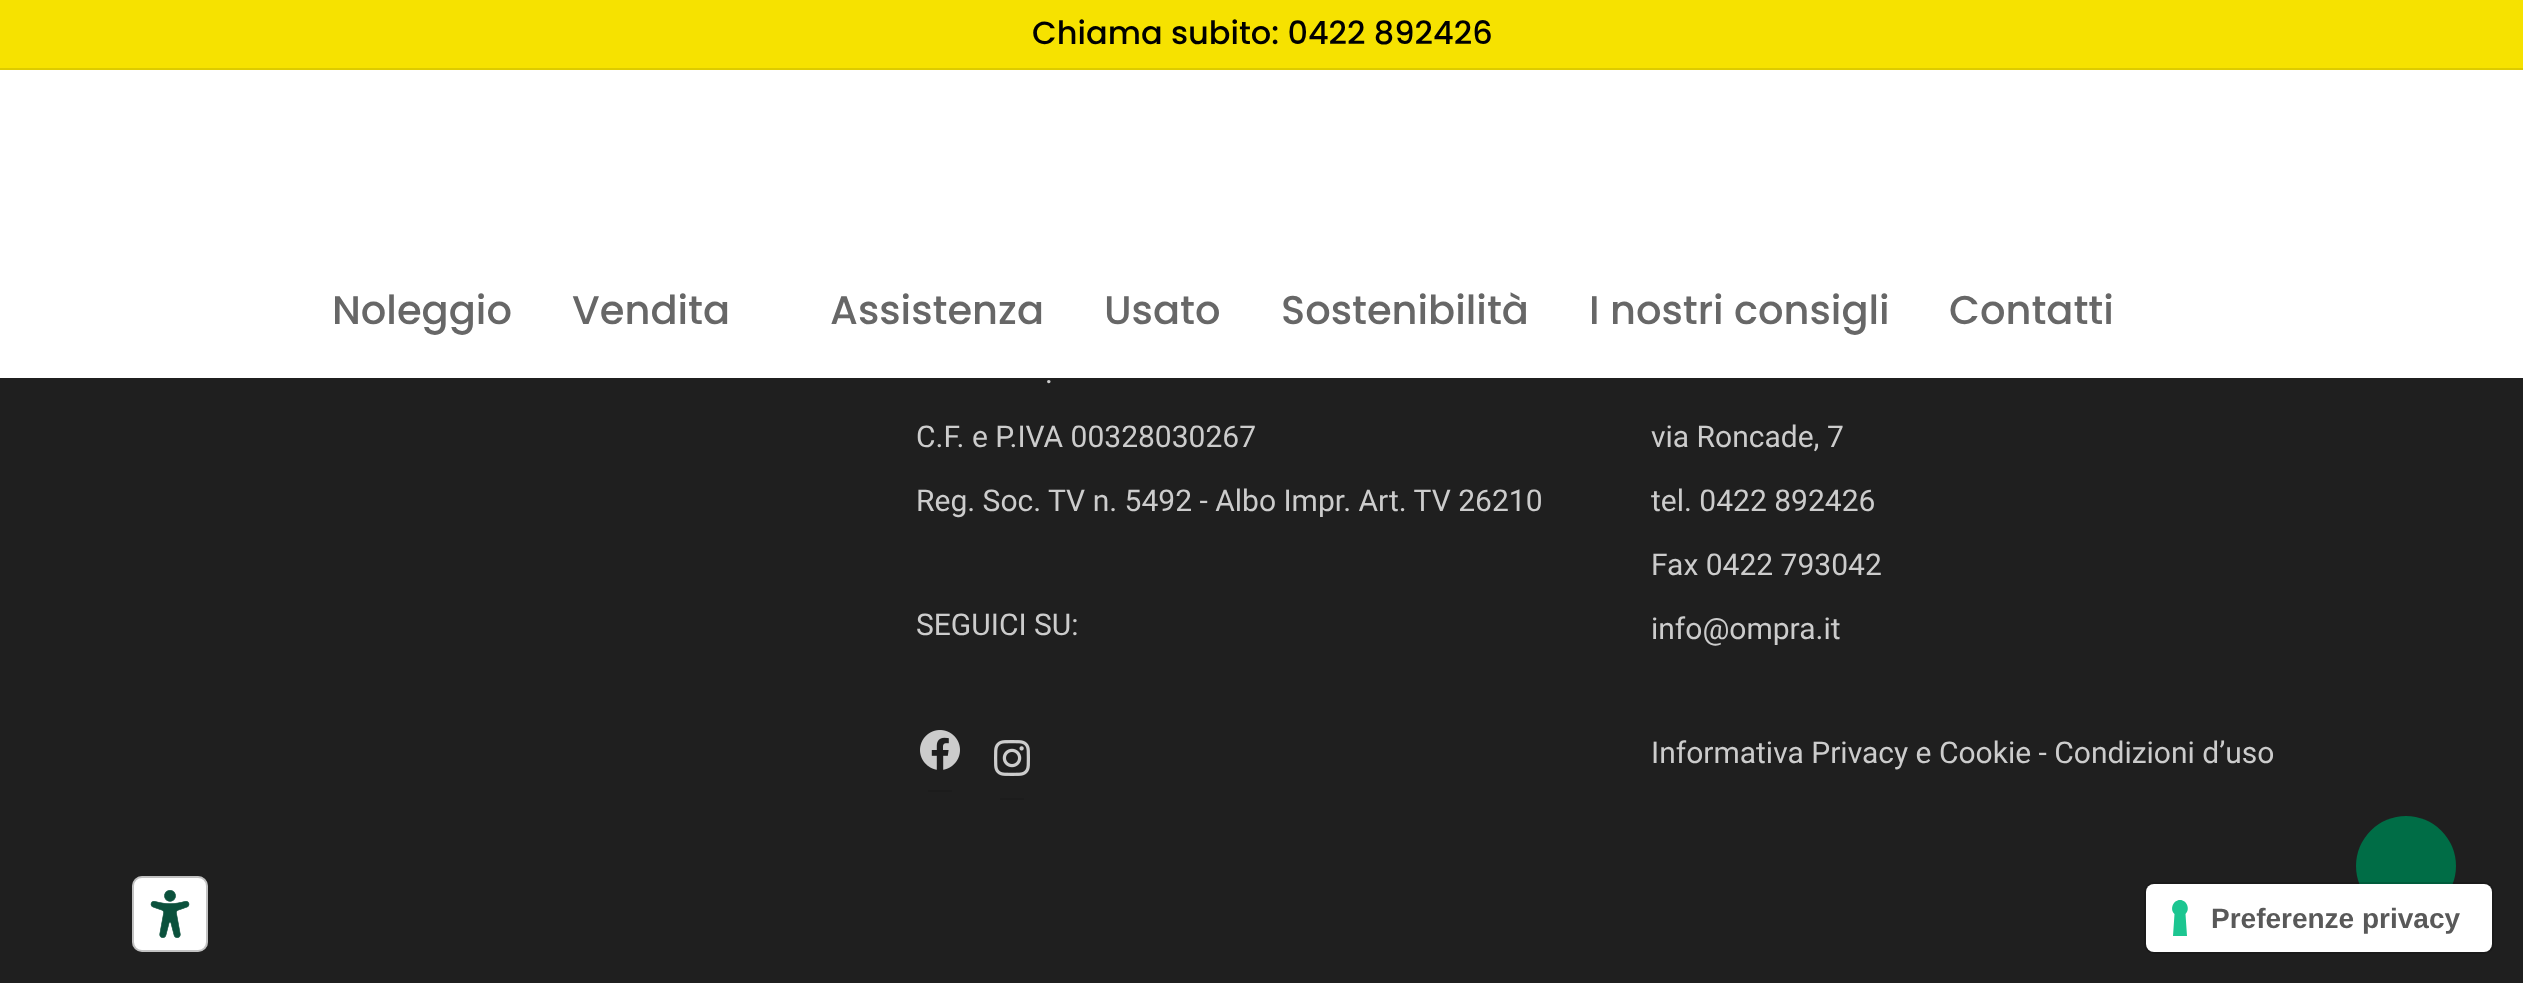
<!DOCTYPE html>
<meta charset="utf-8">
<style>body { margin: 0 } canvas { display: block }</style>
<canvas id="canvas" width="2523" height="983"></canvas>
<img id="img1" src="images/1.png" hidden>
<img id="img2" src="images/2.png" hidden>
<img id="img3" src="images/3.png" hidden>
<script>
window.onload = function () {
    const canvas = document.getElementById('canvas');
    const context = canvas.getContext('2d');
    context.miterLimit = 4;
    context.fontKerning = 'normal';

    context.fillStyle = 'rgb(31, 31, 31)';
    context.fillRect(0, 0, 2523, 983);
    context.fillStyle = 'rgb(255, 255, 255)';
    context.fillRect(0, 70, 2523, 308);
    context.fillStyle = 'rgb(246, 226, 0)';
    context.fillRect(0, 0, 2523, 68);
    context.fillStyle = 'rgb(221, 203, 0)';
    context.fillRect(0, 68, 2523, 2);
    context.fillStyle = 'rgb(28, 28, 28)';
    context.fillRect(928, 790, 24, 2);
    context.drawImage(document.getElementById('img1'), 920, 730, 40, 40);
    context.fillRect(1000, 798, 24, 2);
    context.drawImage(document.getElementById('img2'), 994, 740, 36, 36);
    context.fillStyle = 'rgb(0, 109, 70)';
    context.beginPath();
    context.arc(2406, 866, 50, 0, 2 * Math.PI);
    context.fill();
    context.fillStyle = 'rgb(255, 255, 255)';
    context.beginPath();
    context.roundRect(132, 876, 76, 76, 10);
    context.fill();
    context.drawImage(document.getElementById('img3'), 150, 890, 40, 48);
    context.beginPath();
    context.roundRect(133, 877, 74, 74, 9);
    context.strokeStyle = 'rgba(0, 0, 0, 0.24)';
    context.lineWidth = 2;
    context.stroke();
    context.beginPath();
    context.roundRect(2145, 883, 348, 70, 9);
    context.strokeStyle = 'rgba(0, 0, 0, 0.15)';
    context.stroke();
    context.beginPath();
    context.roundRect(2146, 884, 346, 68, 8);
    context.fill();
    context.fillStyle = 'rgb(28, 198, 145)';
    context.beginPath();
    context.moveTo(2180, 900);
    context.bezierCurveTo(2187, 900, 2190.5, 909.5, 2185.5, 914);
    context.lineTo(2187, 936);
    context.lineTo(2173, 936);
    context.lineTo(2174.5, 914);
    context.bezierCurveTo(2169.5, 909.5, 2173, 900, 2180, 900);
    context.closePath();
    context.fill('evenodd');
    context.font = '500 32px Poppins';
    context.fillStyle = 'rgb(0, 0, 0)';
    context.fillText('Chiama subito: 0422 892426', 1032, 44);
    context.font = '500 40px Poppins';
    context.fillStyle = 'rgb(103, 103, 103)';
    context.fillText('Noleggio', 332, 324);
    context.fillText('Vendita', 572, 324);
    context.fillText('Assistenza', 830, 324);
    context.fillText('Usato', 1104, 324);
    context.fillText('Sostenibilità', 1281, 324);
    context.fillText('I nostri consigli', 1589, 324);
    context.fillText('Contatti', 1949, 324);
    context.font = '30px Roboto';
    context.fillStyle = 'rgb(204, 204, 204)';
    context.fillText('.', 1045, 383);
    context.fillText('C.F. e P.IVA 00328030267', 916, 447);
    context.fillText('Reg. Soc. TV n. 5492 - Albo Impr. Art. TV 26210', 916, 511);
    context.fillText('SEGUICI SU:', 916, 635);
    context.fillText('via Roncade, 7', 1651, 447);
    context.fillText('tel. 0422 892426', 1651, 511);
    context.fillText('Fax 0422 793042', 1651, 575);
    context.fillText('info@ompra.it', 1651, 639);
    context.fillText('Informativa Privacy e Cookie - Condizioni d’uso', 1651, 763);
    context.font = 'bold 28px Liberation Sans';
    context.fillStyle = 'rgb(89, 89, 89)';
    context.fillText('Preferenze privacy', 2211, 928);
};
</script>
